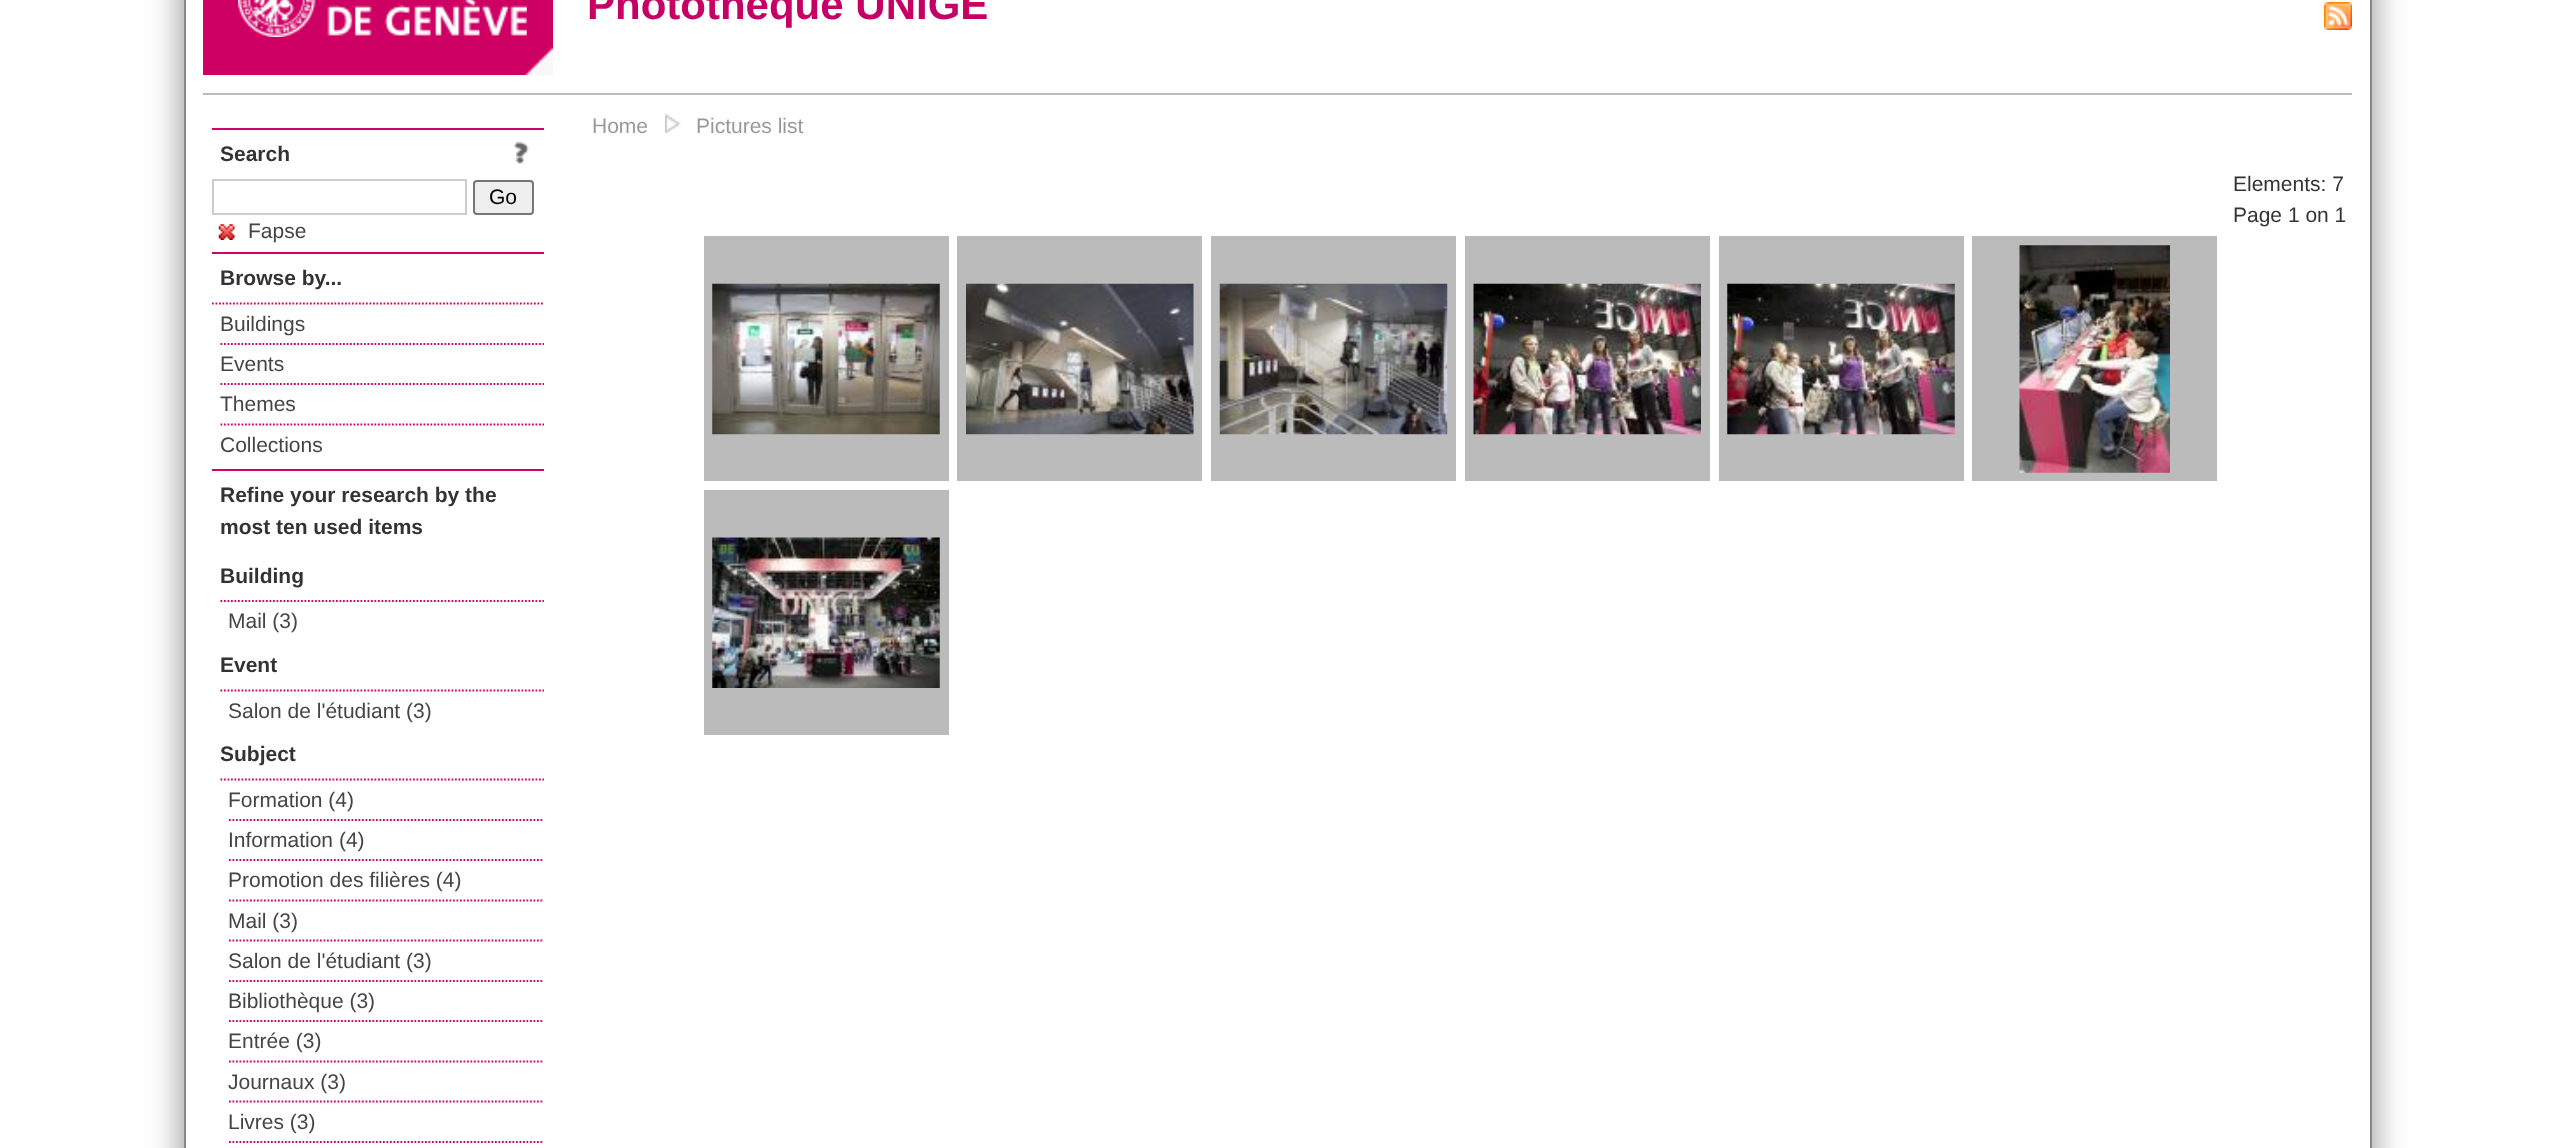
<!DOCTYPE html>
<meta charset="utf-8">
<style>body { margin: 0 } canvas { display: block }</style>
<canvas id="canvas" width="2553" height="1148"></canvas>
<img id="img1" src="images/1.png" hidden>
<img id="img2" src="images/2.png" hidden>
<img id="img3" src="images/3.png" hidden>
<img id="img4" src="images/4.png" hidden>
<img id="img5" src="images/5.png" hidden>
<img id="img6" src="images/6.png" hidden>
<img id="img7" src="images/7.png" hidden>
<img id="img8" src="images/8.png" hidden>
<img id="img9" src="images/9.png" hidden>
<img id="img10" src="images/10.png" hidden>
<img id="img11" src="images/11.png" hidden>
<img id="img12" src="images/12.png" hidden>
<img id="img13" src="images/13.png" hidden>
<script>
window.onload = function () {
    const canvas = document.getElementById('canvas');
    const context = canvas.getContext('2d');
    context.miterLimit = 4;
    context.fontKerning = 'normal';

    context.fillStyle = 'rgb(255, 255, 255)';
    context.fillRect(0, 0, 2553, 1148);
    context.save();
    context.beginPath();
    context.moveTo(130, 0);
    context.lineTo(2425, 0);
    context.lineTo(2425, 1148);
    context.lineTo(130, 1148);
    context.closePath();
    context.moveTo(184, -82);
    context.lineTo(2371, -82);
    context.lineTo(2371, 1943);
    context.lineTo(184, 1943);
    context.closePath();
    context.clip('evenodd');
    context.fillStyle = 'rgb(136, 136, 136)';
    context.filter = 'blur(17.5px)';
    context.beginPath();
    context.rect(184, -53, 2187, 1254);
    context.fill();
    context.filter = 'none';
    context.restore();
    context.fillStyle = 'rgb(136, 136, 136)';
    context.fillRect(2370, 0, 2, 1148);
    context.fillRect(184, 0, 2, 1148);
    context.fillStyle = 'rgb(207, 0, 99)';
    context.fillRect(203, 0, 350, 75);
    context.drawImage(document.getElementById('img1'), 524, 47, 29, 29);
    context.drawImage(document.getElementById('img2'), 238, 0, 289, 37);
    context.drawImage(document.getElementById('img3'), 2324, 2, 28, 28);
    context.fillStyle = 'rgb(187, 187, 187)';
    context.fillRect(203, 93, 2149, 2);
    context.fillStyle = 'rgb(212, 0, 105)';
    context.fillRect(212, 128, 332, 2);
    context.drawImage(document.getElementById('img4'), 514, 141, 15, 23);
    context.strokeStyle = 'rgb(204, 204, 204)';
    context.lineWidth = 2;
    context.strokeRect(213, 180, 253, 34);
    context.fillStyle = 'rgb(239, 239, 239)';
    context.beginPath();
    context.roundRect(474, 181, 59, 33, 3);
    context.fill();
    context.strokeStyle = 'rgb(118, 118, 118)';
    context.stroke();
    context.drawImage(document.getElementById('img5'), 218, 224, 17, 16);
    context.fillStyle = 'rgb(212, 0, 105)';
    context.fillRect(212, 252, 332, 2);
    context.beginPath();
    context.moveTo(212, 303.5);
    context.lineTo(544, 303.5);
    context.strokeStyle = 'rgb(212, 0, 105)';
    context.lineWidth = 1.8;
    context.setLineDash([1.75, 1.75]);
    context.stroke();
    context.beginPath();
    context.moveTo(220.5, 344);
    context.lineTo(544, 344);
    context.stroke();
    context.beginPath();
    context.moveTo(220.5, 384);
    context.lineTo(544, 384);
    context.stroke();
    context.beginPath();
    context.moveTo(220.5, 424.5);
    context.lineTo(544, 424.5);
    context.stroke();
    context.fillRect(212, 469, 332, 2);
    context.beginPath();
    context.moveTo(220.5, 601);
    context.lineTo(544, 601);
    context.stroke();
    context.beginPath();
    context.moveTo(220.5, 690.5);
    context.lineTo(544, 690.5);
    context.stroke();
    context.beginPath();
    context.moveTo(220.5, 779.5);
    context.lineTo(544, 779.5);
    context.stroke();
    context.beginPath();
    context.moveTo(229, 820);
    context.lineTo(544, 820);
    context.stroke();
    context.beginPath();
    context.moveTo(229, 860);
    context.lineTo(544, 860);
    context.stroke();
    context.beginPath();
    context.moveTo(229, 900.5);
    context.lineTo(544, 900.5);
    context.stroke();
    context.beginPath();
    context.moveTo(229, 940.5);
    context.lineTo(544, 940.5);
    context.stroke();
    context.beginPath();
    context.moveTo(229, 981);
    context.lineTo(544, 981);
    context.stroke();
    context.beginPath();
    context.moveTo(229, 1021);
    context.lineTo(544, 1021);
    context.stroke();
    context.beginPath();
    context.moveTo(229, 1061.5);
    context.lineTo(544, 1061.5);
    context.stroke();
    context.beginPath();
    context.moveTo(229, 1101.5);
    context.lineTo(544, 1101.5);
    context.stroke();
    context.beginPath();
    context.moveTo(229, 1142);
    context.lineTo(544, 1142);
    context.stroke();
    context.drawImage(document.getElementById('img6'), 665, 114, 16, 20);
    context.fillStyle = 'rgb(187, 187, 187)';
    context.fillRect(704, 236, 245, 245);
    context.drawImage(document.getElementById('img7'), 712, 283, 228, 152);
    context.fillRect(957, 236, 245, 245);
    context.drawImage(document.getElementById('img8'), 966, 283, 228, 152);
    context.fillRect(1211, 236, 245, 245);
    context.drawImage(document.getElementById('img9'), 1219, 283, 229, 152);
    context.fillRect(1465, 236, 245, 245);
    context.drawImage(document.getElementById('img10'), 1473, 283, 228, 152);
    context.fillRect(1719, 236, 245, 245);
    context.drawImage(document.getElementById('img11'), 1727, 283, 228, 152);
    context.fillRect(1972, 236, 245, 245);
    context.drawImage(document.getElementById('img12'), 2019, 245, 151, 228);
    context.fillRect(704, 490, 245, 245);
    context.drawImage(document.getElementById('img13'), 712, 537, 228, 151);
    context.font = 'bold 42px Liberation Sans';
    context.fillStyle = 'rgb(198, 0, 101)';
    context.fillText('Phototheque UNIGE', 587, 19);
    context.font = 'bold 21px Liberation Sans';
    context.fillStyle = 'rgb(51, 51, 51)';
    context.fillText('Search', 220, 161);
    context.font = '21px Liberation Sans';
    context.fillStyle = 'rgb(0, 0, 0)';
    context.fillText('Go', 489, 204);
    context.fillStyle = 'rgb(69, 69, 69)';
    context.fillText('Fapse', 248, 238);
    context.font = 'bold 21px Liberation Sans';
    context.fillStyle = 'rgb(51, 51, 51)';
    context.fillText('Browse by...', 220, 285);
    context.font = '21px Liberation Sans';
    context.fillStyle = 'rgb(69, 69, 69)';
    context.fillText('Buildings', 220, 331);
    context.fillText('Events', 220, 371);
    context.fillText('Themes', 220, 411);
    context.fillText('Collections', 220, 452);
    context.font = 'bold 21px Liberation Sans';
    context.fillStyle = 'rgb(51, 51, 51)';
    context.fillText('Refine your research by the', 220, 502);
    context.fillText('most ten used items', 220, 534);
    context.fillText('Building', 220, 583);
    context.font = '21px Liberation Sans';
    context.fillStyle = 'rgb(69, 69, 69)';
    context.fillText('Mail (3)', 228, 628);
    context.font = 'bold 21px Liberation Sans';
    context.fillStyle = 'rgb(51, 51, 51)';
    context.fillText('Event', 220, 672);
    context.font = '21px Liberation Sans';
    context.fillStyle = 'rgb(69, 69, 69)';
    context.fillText('Salon de l\'étudiant (3)', 228, 718);
    context.font = 'bold 21px Liberation Sans';
    context.fillStyle = 'rgb(51, 51, 51)';
    context.fillText('Subject', 220, 761);
    context.font = '21px Liberation Sans';
    context.fillStyle = 'rgb(69, 69, 69)';
    context.fillText('Formation (4)', 228, 807);
    context.fillText('Information (4)', 228, 847);
    context.fillText('Promotion des filières (4)', 228, 887);
    context.fillText('Mail (3)', 228, 928);
    context.fillText('Salon de l\'étudiant (3)', 228, 968);
    context.fillText('Bibliothèque (3)', 228, 1008);
    context.fillText('Entrée (3)', 228, 1048);
    context.fillText('Journaux (3)', 228, 1089);
    context.fillText('Livres (3)', 228, 1129);
    context.fillStyle = 'rgb(153, 153, 153)';
    context.fillText('Home', 592, 133);
    context.fillText('Pictures list', 696, 133);
    context.fillStyle = 'rgb(51, 51, 51)';
    context.fillText('Elements: 7', 2233, 191);
    context.fillText('Page 1 on 1', 2233, 222);
};
</script>
